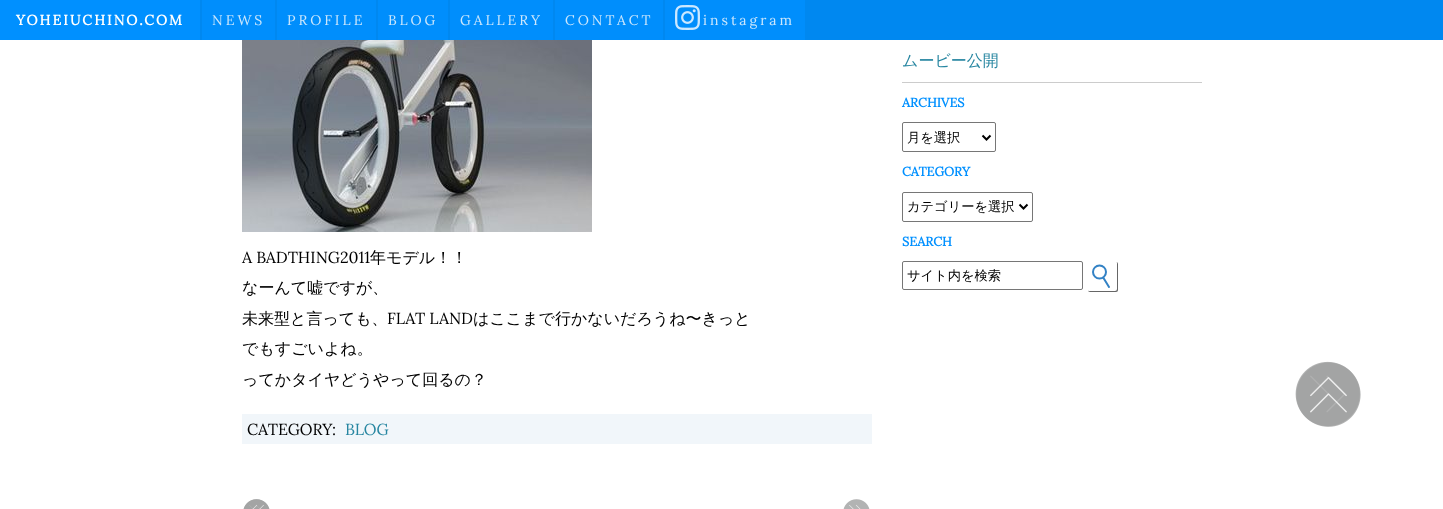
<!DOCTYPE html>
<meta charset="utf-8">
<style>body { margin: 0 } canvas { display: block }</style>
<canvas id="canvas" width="1443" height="509"></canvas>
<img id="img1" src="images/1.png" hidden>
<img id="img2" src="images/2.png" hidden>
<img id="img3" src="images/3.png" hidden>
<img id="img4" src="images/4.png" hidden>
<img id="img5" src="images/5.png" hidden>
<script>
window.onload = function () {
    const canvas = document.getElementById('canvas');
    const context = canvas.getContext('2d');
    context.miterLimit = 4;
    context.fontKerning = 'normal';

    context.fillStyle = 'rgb(255, 255, 255)';
    context.fillRect(0, 0, 1443, 509);
    context.fillStyle = 'rgb(0, 136, 240)';
    context.fillRect(200, 0, 1243, 40);
    context.fillStyle = 'rgb(0, 144, 255)';
    context.fillRect(0, 0, 200, 40);
    context.fillStyle = 'rgb(0, 142, 252)';
    context.fillRect(202, 0, 73, 40);
    context.fillRect(277, 0, 99, 40);
    context.fillRect(378, 0, 70, 40);
    context.fillRect(450, 0, 103, 40);
    context.fillRect(555, 0, 108, 40);
    context.fillRect(665, 0, 140, 40);
    context.drawImage(document.getElementById('img1'), 675, 5, 25, 25);
    context.fillStyle = 'rgb(204, 204, 204)';
    context.fillRect(902, 82, 300, 1);
    context.beginPath();
    context.roundRect(902.5, 122.5, 93, 29, 1.5);
    context.strokeStyle = 'rgb(118, 118, 118)';
    context.stroke();
    context.beginPath();
    context.moveTo(982.5, 135.5);
    context.lineTo(986.5, 139.5);
    context.lineTo(990.5, 135.5);
    context.strokeStyle = 'rgb(0, 0, 0)';
    context.lineWidth = 2;
    context.stroke();
    context.beginPath();
    context.roundRect(902.5, 192.5, 130, 29, 1.5);
    context.strokeStyle = 'rgb(118, 118, 118)';
    context.lineWidth = 1;
    context.stroke();
    context.beginPath();
    context.moveTo(1019.5, 204.5);
    context.lineTo(1023.5, 208.5);
    context.lineTo(1027.5, 204.5);
    context.strokeStyle = 'rgb(0, 0, 0)';
    context.lineWidth = 2;
    context.stroke();
    context.beginPath();
    context.roundRect(902.5, 261.5, 180, 28, 1.5);
    context.strokeStyle = 'rgb(118, 118, 118)';
    context.lineWidth = 1;
    context.stroke();
    context.fillStyle = 'rgb(102, 102, 102)';
    context.filter = 'blur(0.5px)';
    context.beginPath();
    context.roundRect(1088, 262, 30, 30, 2);
    context.fill();
    context.filter = 'none';
    context.fillStyle = 'rgb(255, 255, 255)';
    context.beginPath();
    context.roundRect(1087, 261, 30, 30, 2);
    context.fill();
    context.beginPath();
    context.arc(1099.5, 272, 6.5, 0, 2 * Math.PI);
    context.strokeStyle = 'rgb(51, 130, 197)';
    context.lineWidth = 2;
    context.stroke();
    context.beginPath();
    context.moveTo(1103.5, 278);
    context.lineTo(1109, 287);
    context.lineCap = 'round';
    context.stroke();
    context.drawImage(document.getElementById('img2'), 242, 40, 350, 192);
    context.fillStyle = 'rgb(241, 246, 250)';
    context.fillRect(242, 414, 630, 30);
    context.drawImage(document.getElementById('img3'), 243, 499, 27, 10);
    context.drawImage(document.getElementById('img4'), 843, 499, 27, 10);
    context.drawImage(document.getElementById('img5'), 1295, 361, 66, 66);
    context.letterSpacing = '2px';
    context.font = 'bold 14px Lora';
    context.fillStyle = 'rgb(255, 255, 255)';
    context.fillText('YOHEIUCHINO.COM', 16, 25);
    context.letterSpacing = '3px';
    context.font = '14px Lora';
    context.fillStyle = 'rgb(204, 231, 252)';
    context.fillText('NEWS', 212, 25);
    context.fillText('PROFILE', 287, 25);
    context.fillText('BLOG', 388, 25);
    context.fillText('GALLERY', 460, 25);
    context.fillText('CONTACT', 565, 25);
    context.fillText('instagram', 703, 25);
    context.letterSpacing = '0px';
    context.font = '500 16px WenQuanYi Zen Hei';
    context.fillStyle = 'rgb(39, 134, 161)';
    context.fillText('ムービー公開', 902, 66);
    context.font = 'bold 12.75px Lora';
    context.fillStyle = 'rgb(0, 144, 255)';
    context.fillText('ARCHIVES', 902, 107);
    context.font = '500 13.25px WenQuanYi Zen Hei';
    context.fillStyle = 'rgb(0, 0, 0)';
    context.fillText('月を選択', 907, 142);
    context.font = 'bold 12.75px Lora';
    context.fillStyle = 'rgb(0, 144, 255)';
    context.fillText('CATEGORY', 902, 176);
    context.font = '500 13.25px WenQuanYi Zen Hei';
    context.fillStyle = 'rgb(0, 0, 0)';
    context.fillText('カテゴリーを選択', 907, 211);
    context.font = 'bold 12.75px Lora';
    context.fillStyle = 'rgb(0, 144, 255)';
    context.fillText('SEARCH', 902, 246);
    context.font = '500 13.25px WenQuanYi Zen Hei';
    context.fillStyle = 'rgb(0, 0, 0)';
    context.fillText('サイト内を検索', 907, 280);
    context.font = '16px Lora';
    context.fillText('A BADTHING2011', 242, 263);
    context.font = '500 16px WenQuanYi Zen Hei';
    context.fillText('年モデル！！', 370, 263);
    context.fillText('なーんて嘘ですが、', 242, 293);
    context.fillText('未来型と言っても、', 242, 324);
    context.font = '16px Lora';
    context.fillText('FLAT LAND', 387, 324);
    context.font = '500 16px WenQuanYi Zen Hei';
    context.fillText('はここまで行かないだろうね〜きっと', 473, 324);
    context.fillText('でもすごいよね。', 242, 354);
    context.fillText('ってかタイヤどうやって回るの？', 242, 385);
    context.font = '16px Lora';
    context.fillText('CATEGORY:', 247, 435);
    context.fillStyle = 'rgb(39, 134, 161)';
    context.fillText('BLOG', 345, 435);
};
</script>
